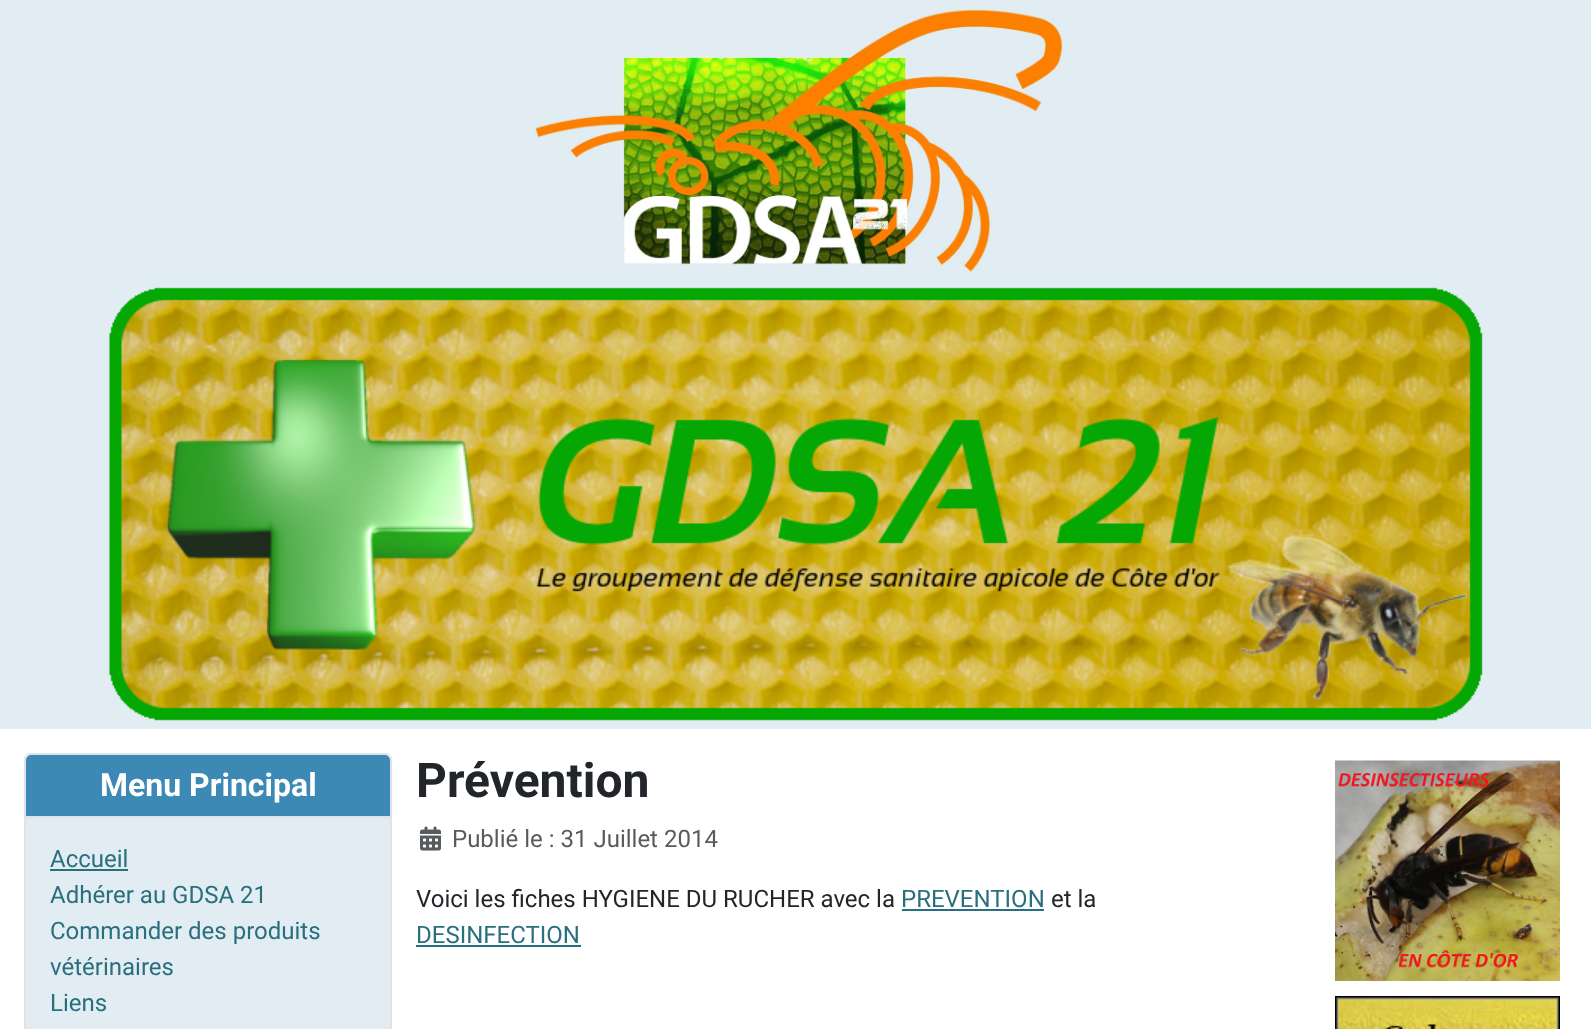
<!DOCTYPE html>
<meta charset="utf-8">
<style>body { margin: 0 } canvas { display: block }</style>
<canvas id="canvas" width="1591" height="1029"></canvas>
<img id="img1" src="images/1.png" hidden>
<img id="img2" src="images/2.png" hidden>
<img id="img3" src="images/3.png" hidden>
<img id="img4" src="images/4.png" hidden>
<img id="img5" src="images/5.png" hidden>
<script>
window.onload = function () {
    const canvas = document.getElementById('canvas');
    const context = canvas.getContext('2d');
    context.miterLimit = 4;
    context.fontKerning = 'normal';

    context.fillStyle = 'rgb(255, 255, 255)';
    context.fillRect(0, 0, 1591, 1029);
    context.fillStyle = 'rgb(225, 237, 243)';
    context.fillRect(0, 0, 1591, 729);
    context.drawImage(document.getElementById('img1'), 535, 9, 528, 264);
    context.drawImage(document.getElementById('img2'), 109, 287, 1374, 434);
    context.beginPath();
    context.roundRect(25, 754, 366, 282, 5);
    context.strokeStyle = 'rgb(223, 227, 231)';
    context.lineWidth = 2;
    context.stroke();
    context.fillStyle = 'rgb(61, 137, 181)';
    context.beginPath();
    context.roundRect(26, 755, 364, 63, [5, 5, 0, 0]);
    context.fill();
    context.fillStyle = 'rgb(223, 227, 231)';
    context.fillRect(26, 816, 364, 2);
    context.fillStyle = 'rgb(225, 237, 243)';
    context.fillRect(26, 818, 364, 211);
    context.fillStyle = 'rgb(42, 111, 125)';
    context.fillRect(50, 869, 78, 2);
    context.drawImage(document.getElementById('img3'), 420, 826, 21, 25);
    context.fillRect(902, 909, 142, 2);
    context.fillRect(416, 945, 165, 2);
    context.drawImage(document.getElementById('img4'), 1335, 760, 225, 221);
    context.drawImage(document.getElementById('img5'), 1335, 996, 225, 33);
    context.font = 'bold 32px Roboto';
    context.fillStyle = 'rgb(255, 255, 255)';
    context.fillText('Menu Principal', 100, 796);
    context.font = '24px Roboto';
    context.fillStyle = 'rgb(42, 111, 125)';
    context.fillText('Accueil', 50, 867);
    context.fillText('Adhérer au GDSA 21', 50, 903);
    context.fillText('Commander des produits', 50, 939);
    context.fillText('vétérinaires', 50, 975);
    context.fillText('Liens', 50, 1011);
    context.font = 'bold 48px Roboto';
    context.fillStyle = 'rgb(34, 38, 42)';
    context.fillText('Prévention', 416, 797);
    context.font = '24px Roboto';
    context.fillStyle = 'rgb(89, 92, 95)';
    context.fillText('Publié le : 31 Juillet 2014', 452, 847);
    context.fillStyle = 'rgb(34, 38, 42)';
    context.fillText('Voici les fiches HYGIENE DU RUCHER avec la', 416, 907);
    context.fillStyle = 'rgb(42, 111, 125)';
    context.fillText('PREVENTION', 901, 907);
    context.fillStyle = 'rgb(34, 38, 42)';
    context.fillText('et la', 1051, 907);
    context.fillStyle = 'rgb(42, 111, 125)';
    context.fillText('DESINFECTION', 416, 943);
};
</script>
